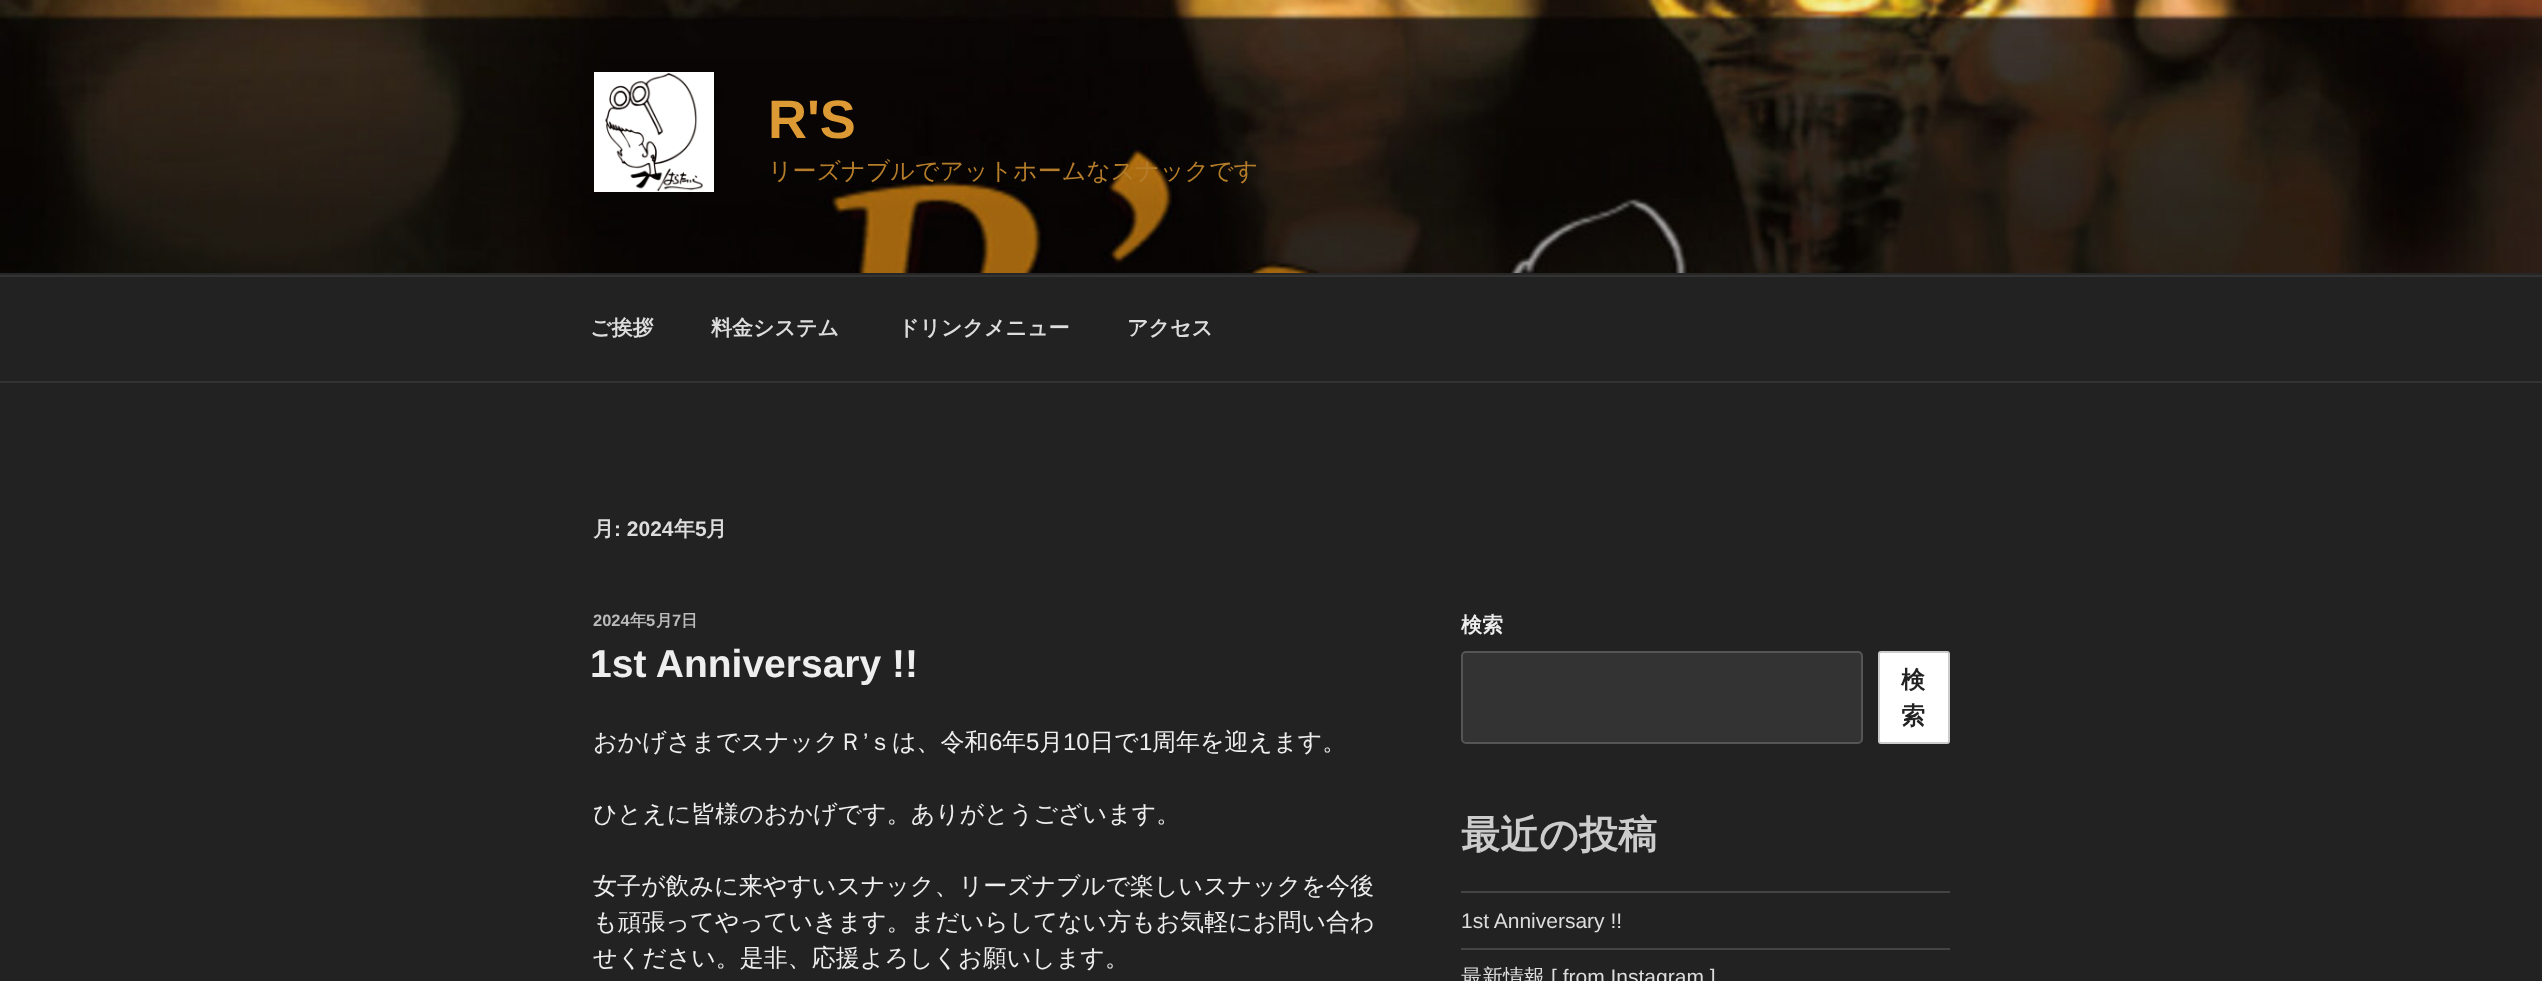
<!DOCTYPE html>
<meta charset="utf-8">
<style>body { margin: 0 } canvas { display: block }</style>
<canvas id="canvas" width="2542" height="981"></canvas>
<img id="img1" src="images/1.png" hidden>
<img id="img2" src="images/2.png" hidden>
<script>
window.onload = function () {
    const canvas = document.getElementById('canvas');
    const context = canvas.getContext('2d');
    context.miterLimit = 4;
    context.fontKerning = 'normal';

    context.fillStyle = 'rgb(34, 34, 34)';
    context.fillRect(0, 0, 2542, 981);
    context.fillStyle = 'rgb(38, 38, 38)';
    context.fillRect(0, 273, 2542, 2);
    context.drawImage(document.getElementById('img1'), 0, 0, 2542, 273);
    context.drawImage(document.getElementById('img2'), 594, 72, 120, 120);
    context.fillStyle = 'rgb(51, 51, 51)';
    context.fillRect(0, 275, 2542, 2);
    context.fillRect(0, 381, 2542, 2);
    context.beginPath();
    context.roundRect(1462, 652, 400, 91, 4);
    context.fill();
    context.strokeStyle = 'rgb(85, 85, 85)';
    context.lineWidth = 2;
    context.stroke();
    context.fillStyle = 'rgb(255, 255, 255)';
    context.beginPath();
    context.roundRect(1879, 652, 70, 91, 2);
    context.fill();
    context.strokeStyle = 'rgb(204, 204, 204)';
    context.stroke();
    context.fillStyle = 'rgb(68, 68, 68)';
    context.fillRect(1461, 891, 489, 2);
    context.fillRect(1461, 948, 489, 2);
    context.font = 'bold 54px Liberation Sans';
    context.fillStyle = 'rgb(221, 153, 51)';
    context.fillText('R\'S', 768, 138);
    context.font = '500 24px WenQuanYi Zen Hei';
    context.fillStyle = 'rgb(181, 125, 42)';
    context.fillText('リーズナブルでアットホームなスナックです', 768, 179);
    context.font = 'bold 21px WenQuanYi Zen Hei';
    context.fillStyle = 'rgb(221, 221, 221)';
    context.fillText('ご挨拶', 590, 335);
    context.fillText('料金システム', 711, 335);
    context.fillText('ドリンクメニュー', 898, 335);
    context.fillText('アクセス', 1127, 335);
    context.fillText('月', 593, 536);
    context.font = 'bold 21px Liberation Sans';
    context.fillText(': 2024', 614, 536);
    context.font = 'bold 21px WenQuanYi Zen Hei';
    context.fillText('年', 674, 536);
    context.font = 'bold 21px Liberation Sans';
    context.fillText('5', 695, 536);
    context.font = 'bold 21px WenQuanYi Zen Hei';
    context.fillText('月', 706, 536);
    context.font = 'bold 16.5px Liberation Sans';
    context.fillStyle = 'rgb(187, 187, 187)';
    context.fillText('2024', 593, 626);
    context.font = 'bold 16.5px WenQuanYi Zen Hei';
    context.fillText('年', 630, 626);
    context.font = 'bold 16.5px Liberation Sans';
    context.fillText('5', 646, 626);
    context.font = 'bold 16.5px WenQuanYi Zen Hei';
    context.fillText('月', 656, 626);
    context.font = 'bold 16.5px Liberation Sans';
    context.fillText('7', 672, 626);
    context.font = 'bold 16.5px WenQuanYi Zen Hei';
    context.fillText('日', 681, 626);
    context.font = 'bold 39px Liberation Sans';
    context.fillStyle = 'rgb(238, 238, 238)';
    context.fillText('1st Anniversary !!', 590, 677);
    context.font = '500 24px WenQuanYi Zen Hei';
    context.fillText('おかげさまでスナックＲ', 593, 750);
    context.font = '24px Liberation Sans';
    context.fillText('’', 863, 750);
    context.font = '500 24px WenQuanYi Zen Hei';
    context.fillText('ｓは、令和', 868, 750);
    context.font = '24px Liberation Sans';
    context.fillText('6', 989, 750);
    context.font = '500 24px WenQuanYi Zen Hei';
    context.fillText('年', 1002, 750);
    context.font = '24px Liberation Sans';
    context.fillText('5', 1026, 750);
    context.font = '500 24px WenQuanYi Zen Hei';
    context.fillText('月', 1039, 750);
    context.font = '24px Liberation Sans';
    context.fillText('10', 1063, 750);
    context.font = '500 24px WenQuanYi Zen Hei';
    context.fillText('日で', 1090, 750);
    context.font = '24px Liberation Sans';
    context.fillText('1', 1139, 750);
    context.font = '500 24px WenQuanYi Zen Hei';
    context.fillText('周年を迎えます。', 1152, 750);
    context.fillText('ひとえに皆様のおかげです。ありがとうございます。', 593, 822);
    context.fillText('女子が飲みに来やすいスナック、リーズナブルで楽しいスナックを今後', 593, 894);
    context.fillText('も頑張ってやっていきます。まだいらしてない方もお気軽にお問い合わ', 593, 930);
    context.fillText('せください。是非、応援よろしくお願いします。', 593, 966);
    context.font = 'bold 21px WenQuanYi Zen Hei';
    context.fillText('検索', 1461, 632);
    context.font = 'bold 24px WenQuanYi Zen Hei';
    context.fillStyle = 'rgb(34, 34, 34)';
    context.fillText('検', 1901, 688);
    context.fillText('索', 1901, 724);
    context.font = 'bold 39px WenQuanYi Zen Hei';
    context.fillStyle = 'rgb(204, 204, 204)';
    context.fillText('最近の投稿', 1461, 848);
    context.font = '21px Liberation Sans';
    context.fillStyle = 'rgb(221, 221, 221)';
    context.fillText('1st Anniversary !!', 1461, 928);
    context.font = '500 21px WenQuanYi Zen Hei';
    context.fillText('最新情報', 1461, 984);
    context.font = '21px Liberation Sans';
    context.fillText('[ from Instagram ]', 1551, 984);
};
</script>
